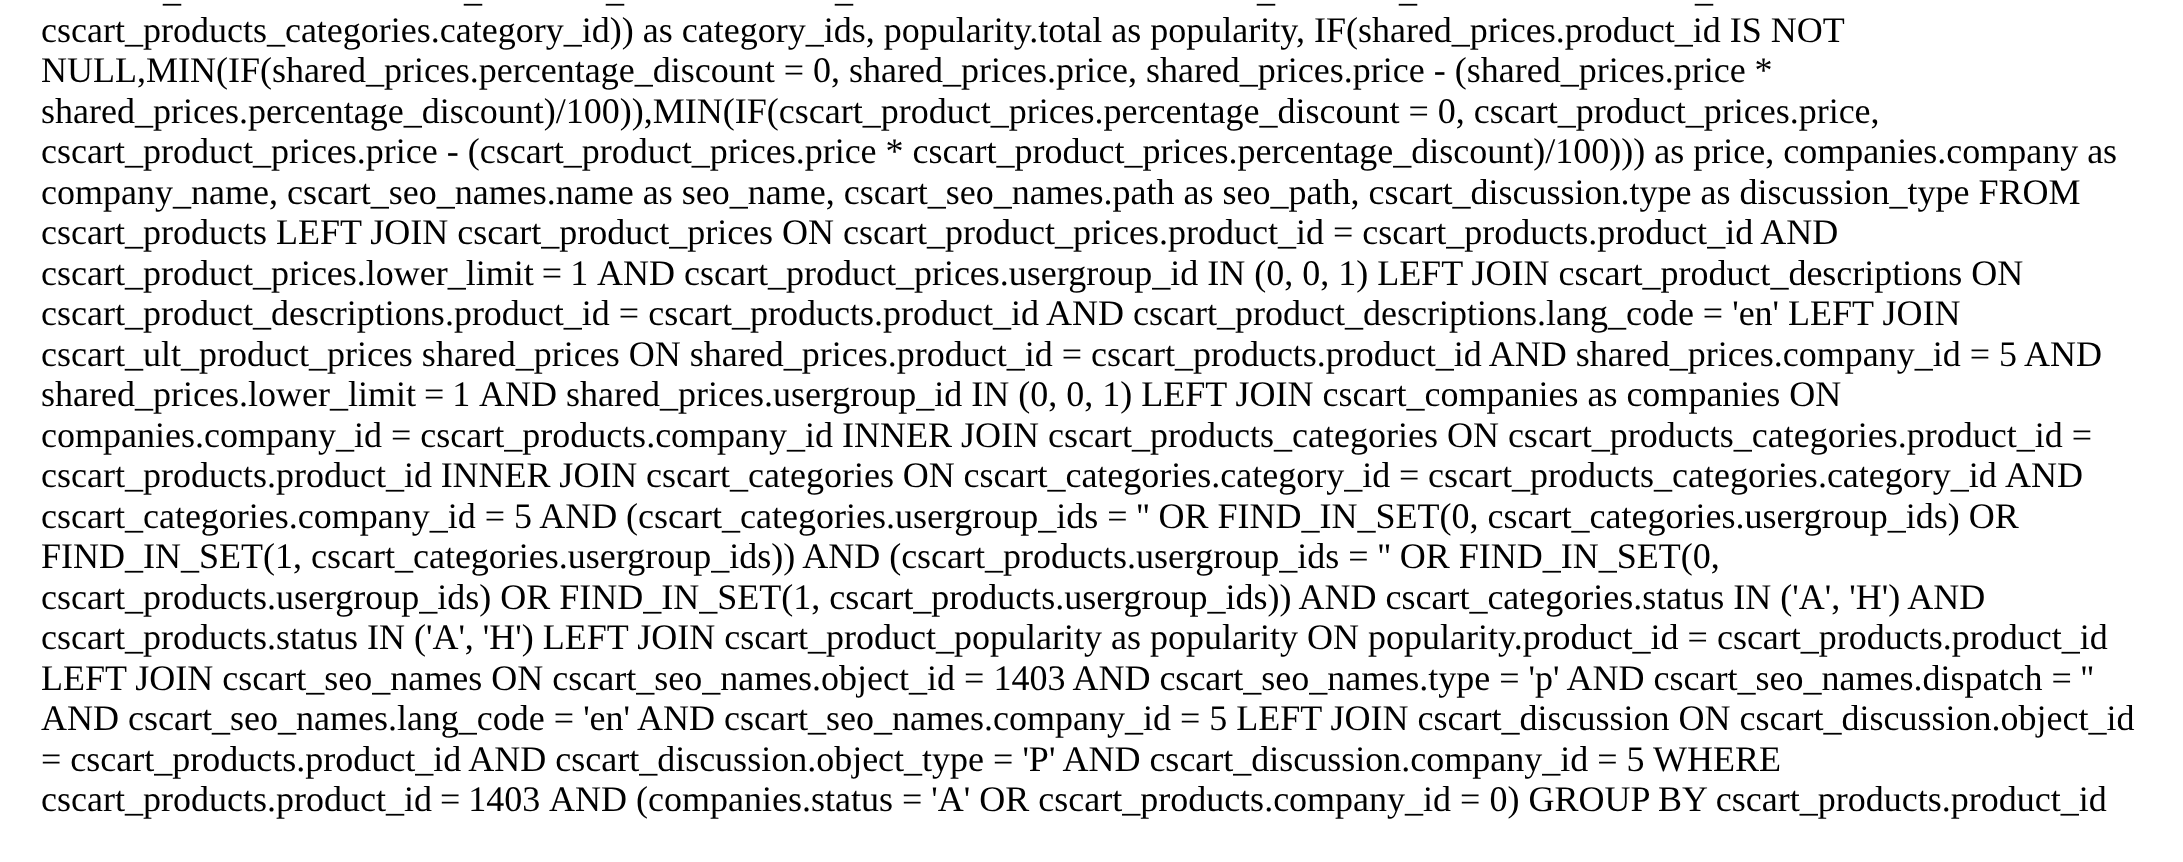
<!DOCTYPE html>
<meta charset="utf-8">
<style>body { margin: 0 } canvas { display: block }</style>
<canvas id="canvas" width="2183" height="862"></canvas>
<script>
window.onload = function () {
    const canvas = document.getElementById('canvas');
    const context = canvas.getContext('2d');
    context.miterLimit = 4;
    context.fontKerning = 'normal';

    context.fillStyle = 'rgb(255, 255, 255)';
    context.fillRect(0, 0, 2183, 862);
    context.font = '36px Liberation Serif';
    context.fillStyle = 'rgb(0, 0, 0)';
    context.fillText('_', 163, 1);
    context.fillText('_', 464, 1);
    context.fillText('_', 606, 1);
    context.fillText('_', 835, 1);
    context.fillText('_', 1257, 1);
    context.fillText('_', 1399, 1);
    context.fillText('_', 1695, 1);
    context.fillText('cscart_products_categories.category_id)) as category_ids, popularity.total as popularity, IF(shared_prices.product_id IS NOT', 41, 42);
    context.fillText('NULL,MIN(IF(shared_prices.percentage_discount = 0, shared_prices.price, shared_prices.price - (shared_prices.price *', 41, 82);
    context.fillText('shared_prices.percentage_discount)/100)),MIN(IF(cscart_product_prices.percentage_discount = 0, cscart_product_prices.price,', 41, 123);
    context.fillText('cscart_product_prices.price - (cscart_product_prices.price * cscart_product_prices.percentage_discount)/100))) as price, companies.company as', 41, 163);
    context.fillText('company_name, cscart_seo_names.name as seo_name, cscart_seo_names.path as seo_path, cscart_discussion.type as discussion_type FROM', 41, 204);
    context.fillText('cscart_products LEFT JOIN cscart_product_prices ON cscart_product_prices.product_id = cscart_products.product_id AND', 41, 244);
    context.wordSpacing = '-1px';
    context.fillText('cscart_product_prices.lower_limit = 1', 41, 285);
    context.wordSpacing = '0px';
    context.fillText('AND cscart_product_prices.usergroup_id IN (0, 0, 1) LEFT JOIN cscart_product_descriptions ON', 597, 285);
    context.fillText('cscart_product_descriptions.product_id = cscart_products.product_id AND cscart_product_descriptions.lang_code = \'en\' LEFT JOIN', 41, 325);
    context.fillText('cscart_ult_product_prices shared_prices ON shared_prices.product_id = cscart_products.product_id AND shared_prices.company_id = 5 AND', 41, 366);
    context.wordSpacing = '-1px';
    context.fillText('shared_prices.lower_limit = 1', 41, 406);
    context.wordSpacing = '0px';
    context.fillText('AND shared_prices.usergroup_id IN (0, 0, 1) LEFT JOIN cscart_companies as companies ON', 479, 406);
    context.fillText('companies.company_id = cscart_products.company_id INNER JOIN cscart_products_categories ON cscart_products_categories.product_id =', 41, 447);
    context.wordSpacing = '-0.25px';
    context.fillText('cscart_products.product_id INNER JOIN cscart_categories ON cscart_categories.category_id = cscart_products_categories.category_id', 41, 487);
    context.wordSpacing = '0px';
    context.fillText('AND', 2005, 487);
    context.fillText('cscart_categories.company_id = 5 AND (cscart_categories.usergroup_ids = \'\' OR FIND_IN_SET(0, cscart_categories.usergroup_ids) OR', 41, 528);
    context.fillText('FIND_IN_SET(1, cscart_categories.usergroup_ids)) AND (cscart_products.usergroup_ids = \'\' OR FIND_IN_SET(0,', 41, 568);
    context.fillText('cscart_products.usergroup_ids) OR FIND_IN_SET(1, cscart_products.usergroup_ids)) AND cscart_categories.status IN (\'A\', \'H\') AND', 41, 609);
    context.fillText('cscart_products.status IN (\'A\', \'H\') LEFT JOIN cscart_product_popularity as popularity ON popularity.product_id = cscart_products.product_id', 41, 649);
    context.fillText('LEFT JOIN cscart_seo_names ON cscart_seo_names.object_id = 1403 AND cscart_seo_names.type = \'p\' AND cscart_seo_names.dispatch = \'\'', 41, 690);
    context.fillText('AND cscart_seo_names.lang_code = \'en\' AND cscart_seo_names.company_id = 5 LEFT JOIN cscart_discussion ON cscart_discussion.object_id', 41, 730);
    context.fillText('= cscart_products.product_id AND cscart_discussion.object_type = \'P\' AND cscart_discussion.company_id = 5 WHERE', 41, 771);
    context.wordSpacing = '-1px';
    context.fillText('cscart_products.product_id = 1403', 41, 811);
    context.wordSpacing = '0px';
    context.fillText('AND (companies.status = \'A\' OR cscart_products.company_id = 0) GROUP BY cscart_products.product_id', 549, 811);
};
</script>
